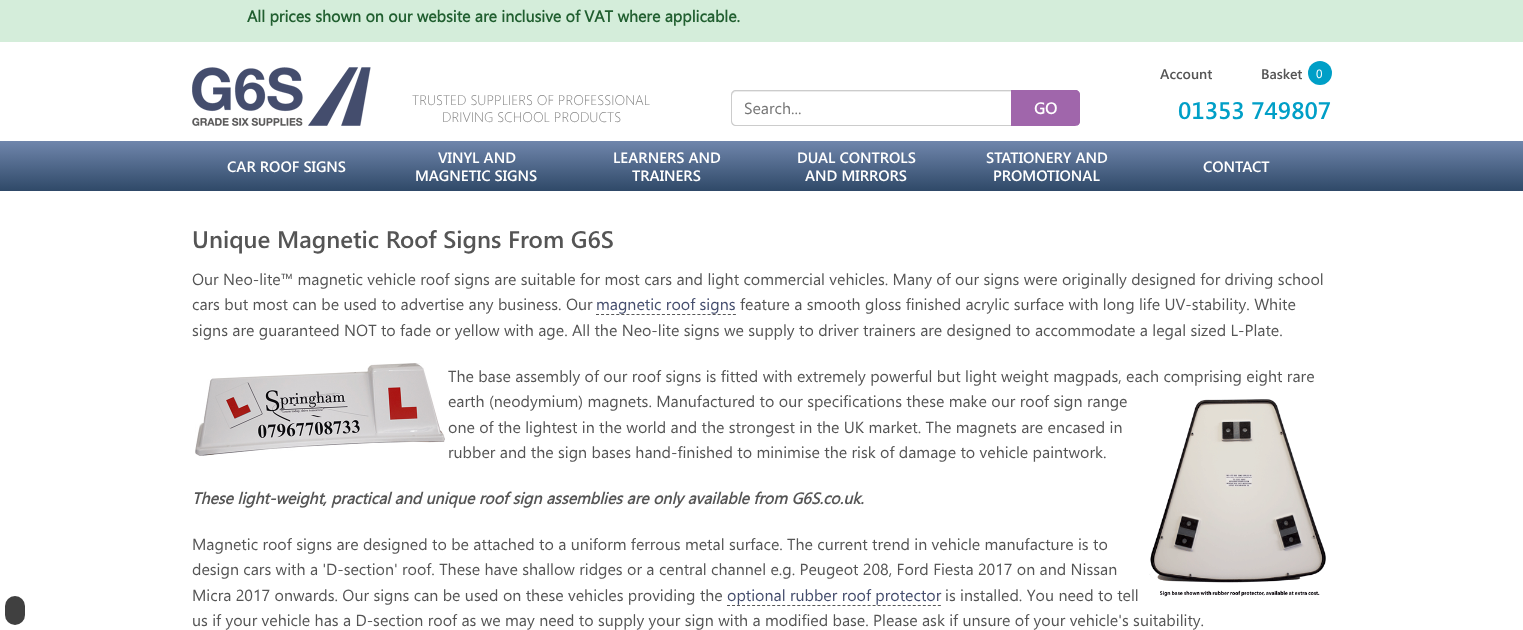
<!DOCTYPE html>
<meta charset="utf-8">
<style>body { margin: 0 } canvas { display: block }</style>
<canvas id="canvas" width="1523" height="630"></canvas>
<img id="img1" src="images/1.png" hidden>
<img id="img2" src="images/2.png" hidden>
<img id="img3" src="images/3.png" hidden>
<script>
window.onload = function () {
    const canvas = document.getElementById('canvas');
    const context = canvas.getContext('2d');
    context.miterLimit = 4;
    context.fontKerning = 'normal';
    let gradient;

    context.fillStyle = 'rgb(255, 255, 255)';
    context.fillRect(0, 0, 1523, 630);
    context.fillStyle = 'rgb(212, 237, 218)';
    context.fillRect(0, 0, 1523, 42);
    context.drawImage(document.getElementById('img1'), 192, 67, 179, 59);
    context.fillStyle = 'rgb(236, 236, 236)';
    context.beginPath();
    context.moveTo(736, 92);
    context.lineTo(1011, 92);
    context.lineTo(1011, 91);
    context.lineTo(736, 91);
    context.bezierCurveTo(733, 91, 732, 93, 732, 96);
    context.bezierCurveTo(732, 94, 734, 92, 736, 92);
    context.closePath();
    context.fill();
    context.fillStyle = 'rgb(204, 204, 204)';
    context.beginPath();
    context.moveTo(736, 90);
    context.lineTo(1011, 90);
    context.lineTo(1011, 126);
    context.lineTo(736, 126);
    context.bezierCurveTo(733, 126, 731, 124, 731, 121);
    context.lineTo(731, 95);
    context.bezierCurveTo(731, 92, 733, 90, 736, 90);
    context.closePath();
    context.moveTo(736, 91);
    context.lineTo(1011, 91);
    context.lineTo(1011, 125);
    context.lineTo(736, 125);
    context.bezierCurveTo(734, 125, 732, 123, 732, 121);
    context.lineTo(732, 95);
    context.bezierCurveTo(732, 93, 734, 91, 736, 91);
    context.closePath();
    context.fill('evenodd');
    context.fillStyle = 'rgb(160, 102, 171)';
    context.beginPath();
    context.roundRect(1011, 90, 69, 36, [0, 5, 5, 0]);
    context.fill();
    context.beginPath();
    context.moveTo(1011, 90);
    context.lineTo(1075, 90);
    context.bezierCurveTo(1078, 90, 1080, 92, 1080, 95);
    context.lineTo(1080, 121);
    context.bezierCurveTo(1080, 124, 1078, 126, 1075, 126);
    context.lineTo(1011, 126);
    context.closePath();
    context.moveTo(1012, 91);
    context.lineTo(1075, 91);
    context.bezierCurveTo(1077, 91, 1079, 93, 1079, 95);
    context.lineTo(1079, 121);
    context.bezierCurveTo(1079, 124, 1077, 126, 1075, 126);
    context.lineTo(1012, 126);
    context.closePath();
    context.fill('evenodd');
    context.fillStyle = 'rgb(0, 159, 199)';
    context.beginPath();
    context.arc(1320, 73, 12, 0, 2 * Math.PI);
    context.fill();
    gradient = context.createLinearGradient(762, 141, 762, 191);
    gradient.addColorStop(0, 'rgb(112, 134, 172)');
    gradient.addColorStop(1, 'rgb(47, 73, 104)');
    context.fillStyle = gradient;
    context.fillRect(0, 141, 1523, 50);
    context.fillStyle = 'rgb(64, 64, 64)';
    context.beginPath();
    context.roundRect(5, 596, 20, 29, 10);
    context.fill();
    context.beginPath();
    context.moveTo(596, 314.5);
    context.lineTo(736, 314.5);
    context.strokeStyle = 'rgb(85, 85, 85)';
    context.setLineDash([3, 2.07]);
    context.stroke();
    context.drawImage(document.getElementById('img2'), 195, 363, 250, 93);
    context.drawImage(document.getElementById('img3'), 1149, 399, 177, 198);
    context.beginPath();
    context.moveTo(727, 605.5);
    context.lineTo(941, 605.5);
    context.setLineDash([3, 2.02]);
    context.stroke();
    context.font = 'bold 16px Segoe UI';
    context.fillStyle = 'rgb(33, 95, 48)';
    context.fillText('All prices shown on our website are inclusive of VAT where applicable.', 247, 22);
    context.font = '300 14px Segoe UI';
    context.fillStyle = 'rgb(136, 136, 136)';
    context.fillText('TRUSTED SUPPLIERS OF PROFESSIONAL', 412, 105);
    context.fillText('DRIVING SCHOOL PRODUCTS', 442, 122);
    context.font = '16px Segoe UI';
    context.fillStyle = 'rgb(118, 118, 118)';
    context.fillText('Search...', 744, 114);
    context.font = 'bold 16px Segoe UI';
    context.fillStyle = 'rgb(255, 255, 255)';
    context.fillText('GO', 1034, 114);
    context.font = '600 14px Segoe UI';
    context.fillStyle = 'rgb(85, 85, 85)';
    context.fillText('Account', 1160, 79);
    context.fillText('Basket', 1261, 79);
    context.font = '12px Segoe UI';
    context.fillStyle = 'rgb(255, 255, 255)';
    context.fillText('0', 1316, 78);
    context.font = '600 24px Segoe UI';
    context.fillStyle = 'rgb(0, 159, 199)';
    context.fillText('01353 749807', 1178, 119);
    context.font = '600 15px Segoe UI';
    context.fillStyle = 'rgb(255, 255, 255)';
    context.fillText('CAR ROOF SIGNS', 227, 172);
    context.fillText('VINYL AND', 438, 163);
    context.fillText('MAGNETIC SIGNS', 415, 181);
    context.fillText('LEARNERS AND', 613, 163);
    context.fillText('TRAINERS', 632, 181);
    context.fillText('DUAL CONTROLS', 797, 163);
    context.fillText('AND MIRRORS', 805, 181);
    context.fillText('STATIONERY AND', 986, 163);
    context.fillText('PROMOTIONAL', 993, 181);
    context.fillText('CONTACT', 1203, 172);
    context.font = '600 24px Segoe UI';
    context.fillStyle = 'rgb(85, 85, 85)';
    context.fillText('Unique Magnetic Roof Signs From G6S', 192, 248);
    context.font = '16px Segoe UI';
    context.fillText('Our Neo-lite™ magnetic vehicle roof signs are suitable for most cars and light commercial vehicles. Many of our signs were originally designed for driving school', 192, 285);
    context.fillText('cars but most can be used to advertise any business. Our', 192, 310);
    context.fillStyle = 'rgb(68, 77, 109)';
    context.fillText('magnetic roof signs', 596, 310);
    context.fillStyle = 'rgb(85, 85, 85)';
    context.fillText('feature a smooth gloss finished acrylic surface with long life UV-stability. White', 740, 310);
    context.fillText('signs are guaranteed NOT to fade or yellow with age. All the Neo-lite signs we supply to driver trainers are designed to accommodate a legal sized L-Plate.', 192, 336);
    context.fillText('The base assembly of our roof signs is fitted with extremely powerful but light weight magpads, each comprising eight rare', 448, 382);
    context.fillText('earth (neodymium) magnets. Manufactured to our specifications these make our roof sign range', 448, 407);
    context.fillText('one of the lightest in the world and the strongest in the UK market. The magnets are encased in', 448, 433);
    context.fillText('rubber and the sign bases hand-finished to minimise the risk of damage to vehicle paintwork.', 448, 458);
    context.font = 'italic bold 16px Segoe UI';
    context.fillText('These light-weight, practical and unique roof sign assemblies are only available from G6S.co.uk.', 192, 504);
    context.font = '16px Segoe UI';
    context.fillText('Magnetic roof signs are designed to be attached to a uniform ferrous metal surface. The current trend in vehicle manufacture is to', 192, 550);
    context.fillText('design cars with a \'D-section\' roof. These have shallow ridges or a central channel e.g. Peugeot 208, Ford Fiesta 2017 on and Nissan', 192, 575);
    context.fillText('Micra 2017 onwards. Our signs can be used on these vehicles providing the', 192, 601);
    context.fillStyle = 'rgb(68, 77, 109)';
    context.fillText('optional rubber roof protector', 727, 601);
    context.fillStyle = 'rgb(85, 85, 85)';
    context.fillText('is installed. You need to tell', 945, 601);
    context.fillText('us if your vehicle has a D-section roof as we may need to supply your sign with a modified base. Please ask if unsure of your vehicle\'s suitability.', 192, 626);
};
</script>
